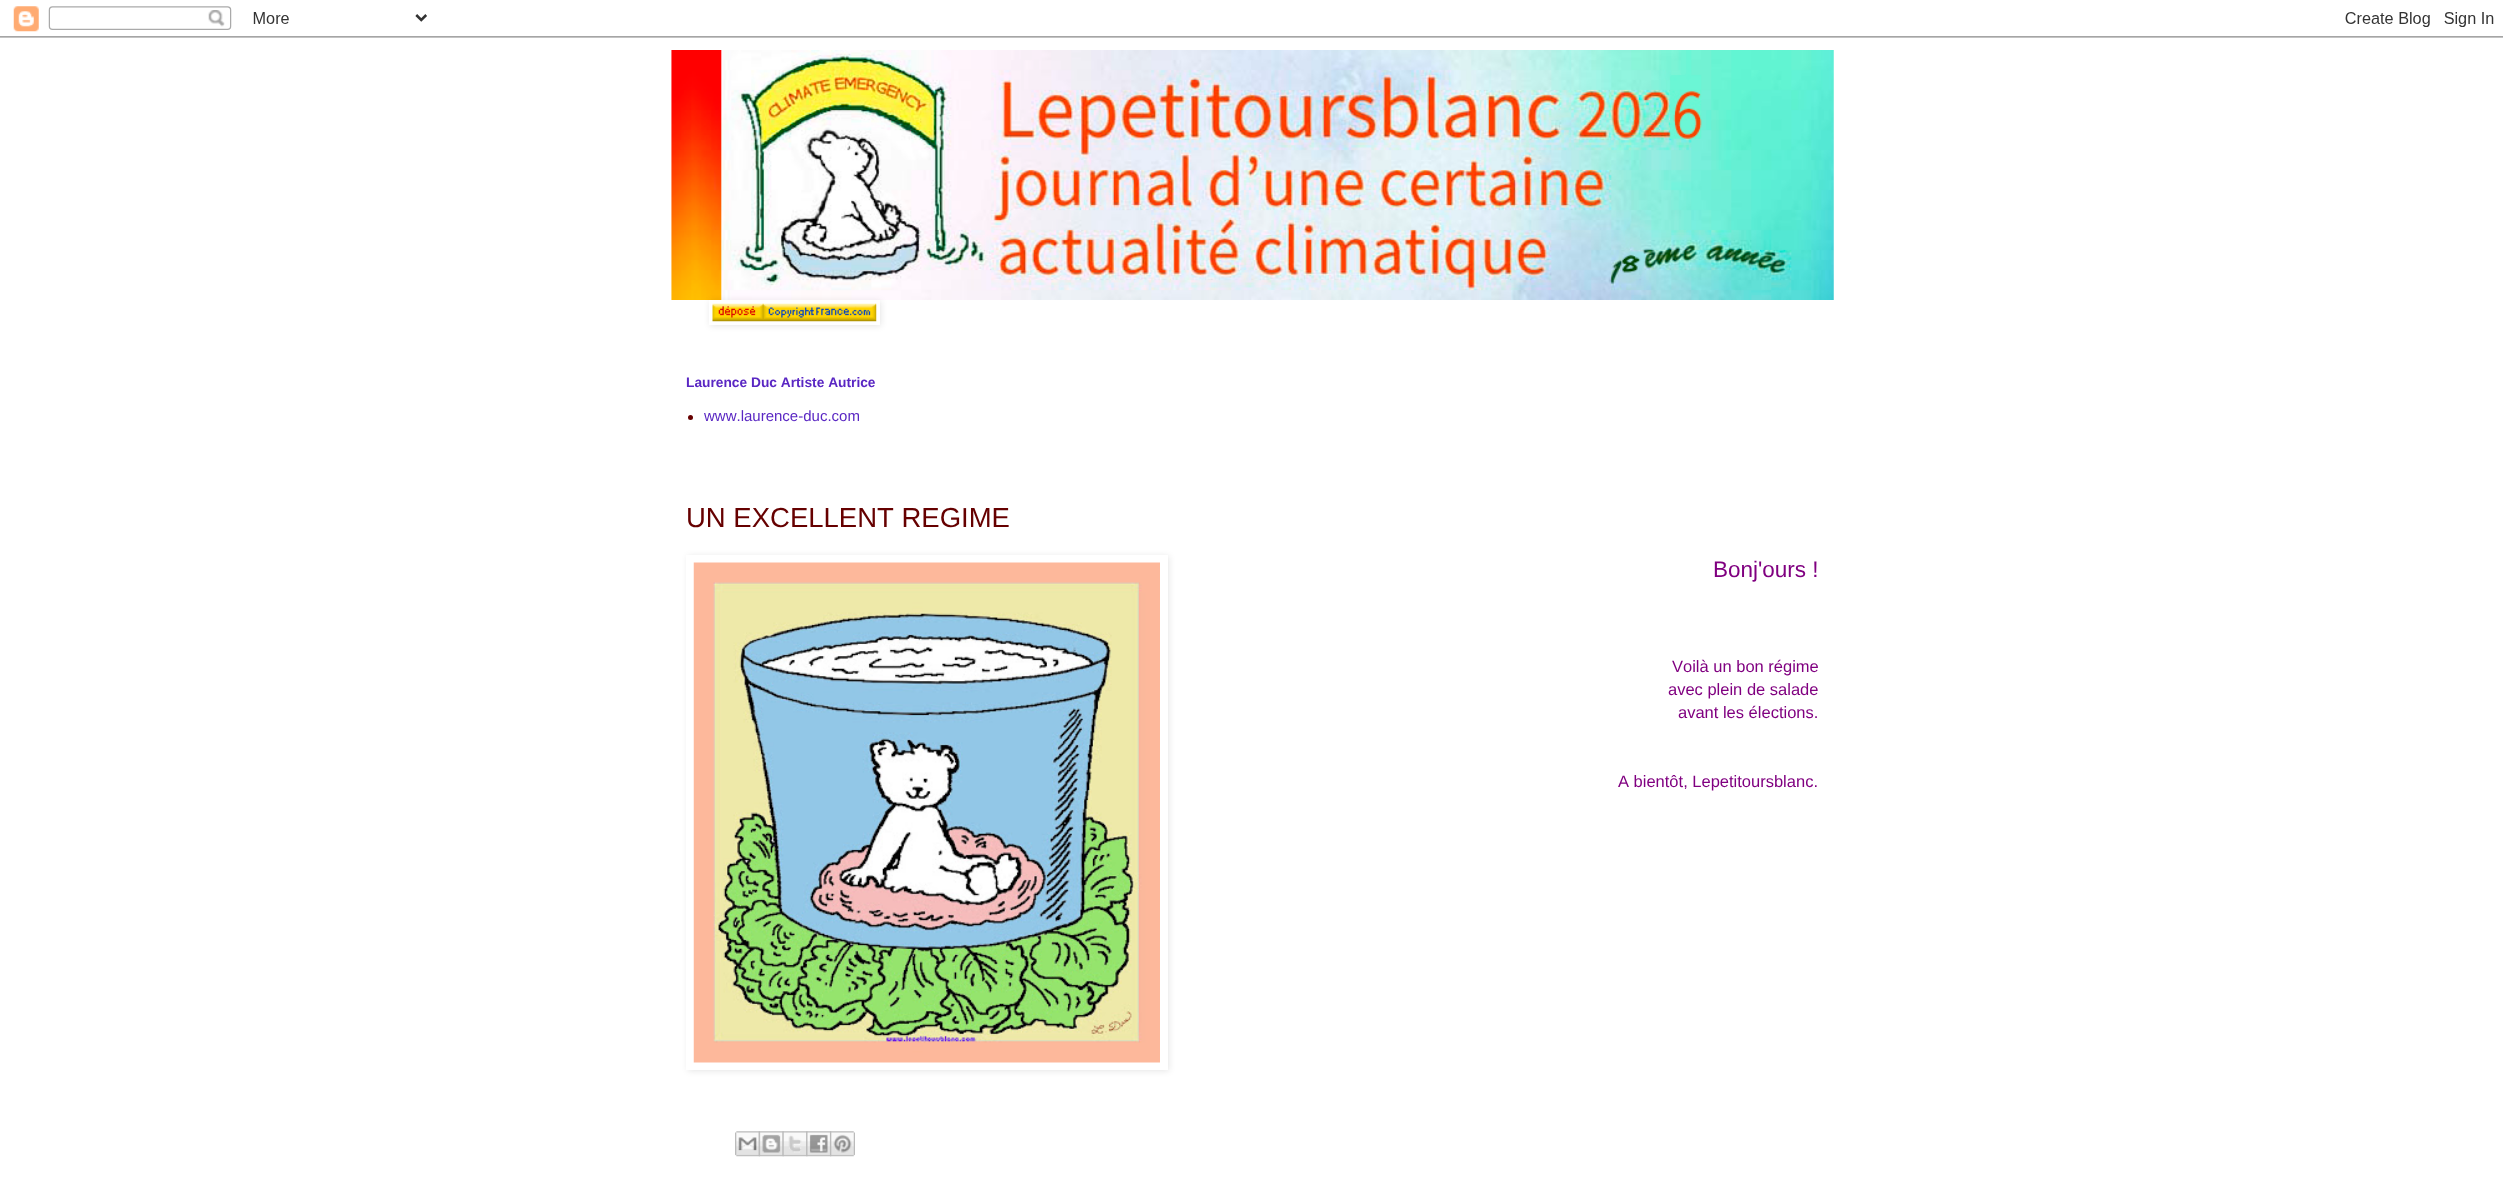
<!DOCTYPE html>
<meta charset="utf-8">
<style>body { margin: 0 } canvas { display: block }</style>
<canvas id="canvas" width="2503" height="1183"></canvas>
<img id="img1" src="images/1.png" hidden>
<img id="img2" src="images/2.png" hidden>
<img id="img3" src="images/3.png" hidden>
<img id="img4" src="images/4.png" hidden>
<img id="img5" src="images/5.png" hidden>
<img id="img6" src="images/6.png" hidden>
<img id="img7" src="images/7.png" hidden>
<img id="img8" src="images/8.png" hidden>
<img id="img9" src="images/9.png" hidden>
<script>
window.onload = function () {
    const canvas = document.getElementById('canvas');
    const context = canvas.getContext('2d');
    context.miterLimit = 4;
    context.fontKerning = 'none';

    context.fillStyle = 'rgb(255, 255, 255)';
    context.fillRect(0, 0, 2503, 1183);
    context.drawImage(document.getElementById('img1'), 0, 6, 2503, 32);
    context.drawImage(document.getElementById('img2'), 671, 50, 1163, 250);
    context.save();
    context.beginPath();
    context.moveTo(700, 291);
    context.lineTo(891, 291);
    context.lineTo(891, 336);
    context.lineTo(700, 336);
    context.closePath();
    context.moveTo(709, 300);
    context.lineTo(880, 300);
    context.lineTo(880, 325);
    context.lineTo(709, 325);
    context.closePath();
    context.clip('evenodd');
    context.fillStyle = 'rgba(0, 0, 0, 0.1)';
    context.filter = 'blur(3px)';
    context.beginPath();
    context.rect(710, 301, 171, 25);
    context.fill();
    context.filter = 'none';
    context.restore();
    context.drawImage(document.getElementById('img3'), 712, 303, 165, 19);
    context.fillStyle = 'rgb(102, 0, 0)';
    context.beginPath();
    context.arc(690.5, 417.5, 2.5, 0, 2 * Math.PI);
    context.fill();
    context.fillStyle = 'rgba(0, 0, 0, 0.1)';
    context.filter = 'blur(3px)';
    context.beginPath();
    context.rect(688, 556, 481, 515);
    context.fill();
    context.filter = 'none';
    context.fillStyle = 'rgb(255, 255, 255)';
    context.fillRect(686, 555, 482, 515);
    context.drawImage(document.getElementById('img4'), 693, 562, 467, 501);
    context.drawImage(document.getElementById('img5'), 735, 1131, 25, 26);
    context.drawImage(document.getElementById('img6'), 758, 1131, 26, 26);
    context.drawImage(document.getElementById('img7'), 782, 1131, 26, 26);
    context.drawImage(document.getElementById('img8'), 806, 1131, 26, 26);
    context.drawImage(document.getElementById('img9'), 830, 1131, 25, 26);
    context.font = 'bold 13.75px Liberation Sans';
    context.fillStyle = 'rgb(90, 39, 195)';
    context.fillText('Laurence Duc Artiste Autrice', 686, 387);
    context.font = '15px Liberation Sans';
    context.fillText('www.laurence-duc.com', 704, 421);
    context.font = '27.5px Liberation Sans';
    context.fillStyle = 'rgb(102, 0, 0)';
    context.fillText('UN EXCELLENT REGIME', 686, 527);
    context.font = '22.5px Liberation Sans';
    context.fillStyle = 'rgb(128, 0, 128)';
    context.fillText('Bonj\'ours !', 1713, 577);
    context.font = '16.5px Liberation Sans';
    context.fillText('Voilà un bon régime', 1672, 672);
    context.fillText('avec plein de salade', 1668, 695);
    context.fillText('avant les élections.', 1678, 718);
    context.fillText('A bientôt, Lepetitoursblanc.', 1618, 787);
};
</script>
